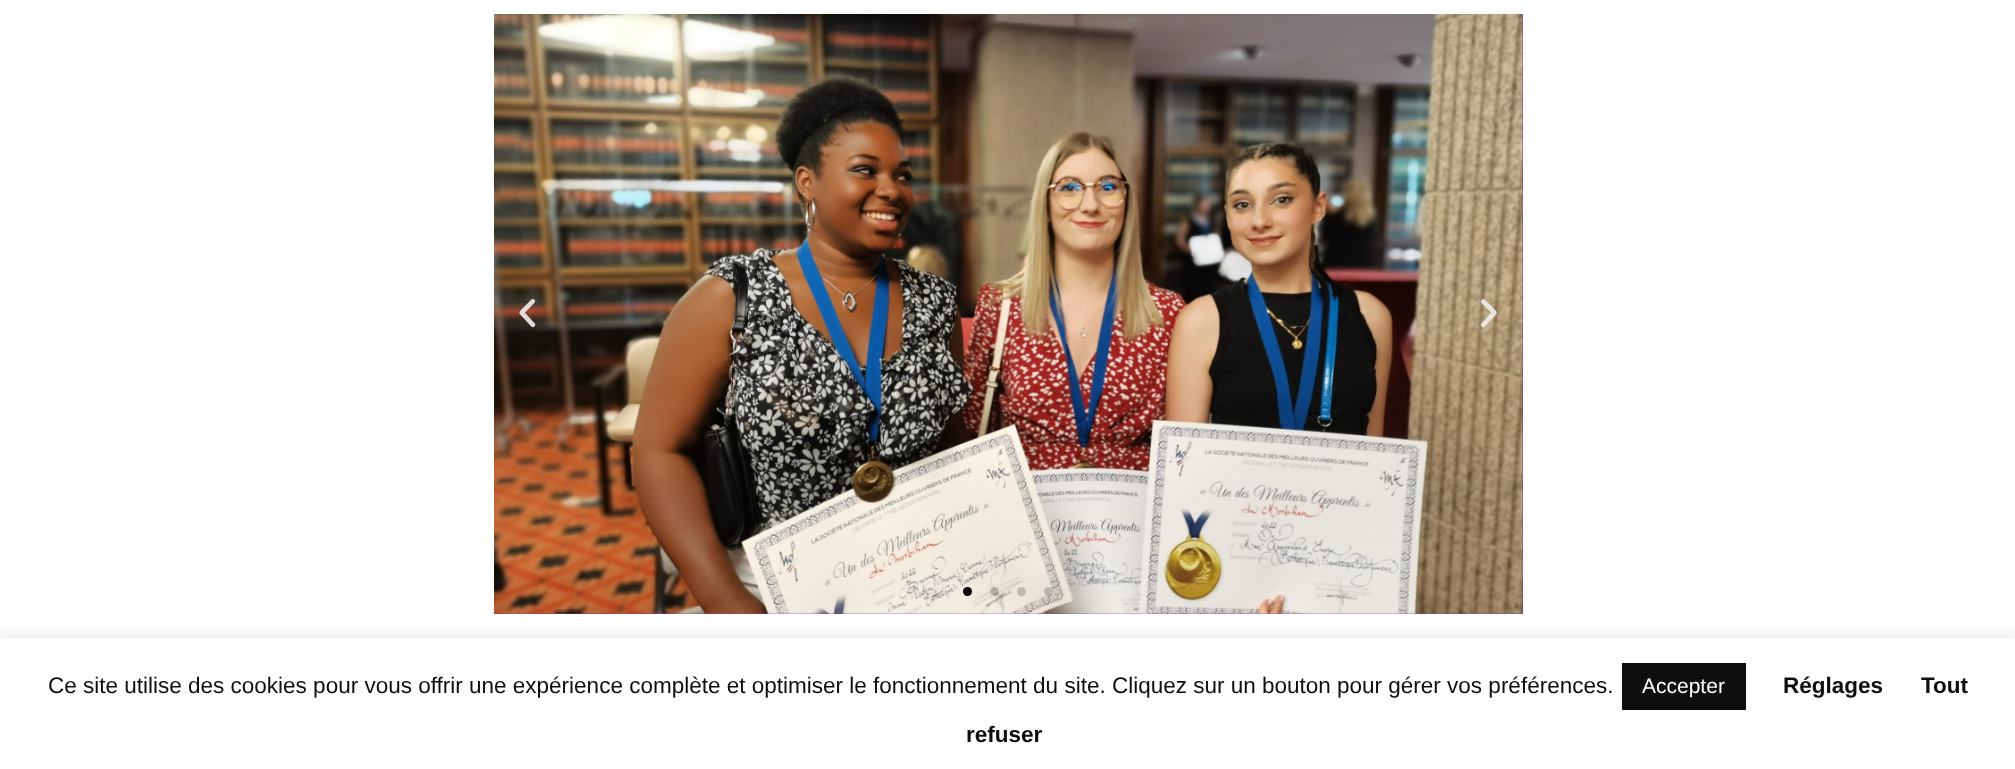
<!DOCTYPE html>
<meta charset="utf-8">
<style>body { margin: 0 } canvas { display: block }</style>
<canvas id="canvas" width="2015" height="769"></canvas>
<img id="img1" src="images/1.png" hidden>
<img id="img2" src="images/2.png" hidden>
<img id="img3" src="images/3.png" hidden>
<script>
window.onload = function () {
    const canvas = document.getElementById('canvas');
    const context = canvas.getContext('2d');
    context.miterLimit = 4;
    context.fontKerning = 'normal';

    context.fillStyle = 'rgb(255, 255, 255)';
    context.fillRect(0, 0, 2015, 769);
    context.fillStyle = 'rgb(131, 60, 163)';
    context.fillRect(494, 14, 1029, 600);
    context.drawImage(document.getElementById('img1'), 494, 14, 1029, 600);
    context.drawImage(document.getElementById('img2'), 519, 299, 17, 29);
    context.drawImage(document.getElementById('img3'), 1480, 299, 17, 29);
    context.fillStyle = 'rgb(0, 0, 0)';
    context.beginPath();
    context.arc(967.5, 591.5, 4.5, 0, 2 * Math.PI);
    context.fill();
    context.fillStyle = 'rgba(0, 0, 0, 0.2)';
    context.beginPath();
    context.arc(994.5, 591.5, 4.5, 0, 2 * Math.PI);
    context.fill();
    context.beginPath();
    context.arc(1021.5, 591.5, 4.5, 0, 2 * Math.PI);
    context.fill();
    context.beginPath();
    context.arc(1048.5, 591.5, 4.5, 0, 2 * Math.PI);
    context.fill();
    context.fillStyle = 'rgba(172, 171, 171, 0.3)';
    context.filter = 'blur(7.5px)';
    context.beginPath();
    context.rect(0, 636, 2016, 132);
    context.fill();
    context.filter = 'none';
    context.fillStyle = 'rgb(255, 255, 255)';
    context.fillRect(0, 638, 2015, 131);
    context.fillStyle = 'rgb(14, 14, 14)';
    context.fillRect(1622, 663, 124, 47);
    context.font = '22.5px Liberation Sans';
    context.fillText('Ce site utilise des cookies pour vous offrir une expérience complète et optimiser le fonctionnement du site. Cliquez sur un bouton pour gérer vos préférences.', 48, 693);
    context.font = '21px Liberation Sans';
    context.fillStyle = 'rgb(255, 255, 255)';
    context.fillText('Accepter', 1642, 693);
    context.font = 'bold 22.5px Liberation Sans';
    context.fillStyle = 'rgb(14, 14, 14)';
    context.fillText('Réglages', 1783, 693);
    context.fillText('Tout', 1921, 693);
    context.fillText('refuser', 966, 742);
};
</script>
